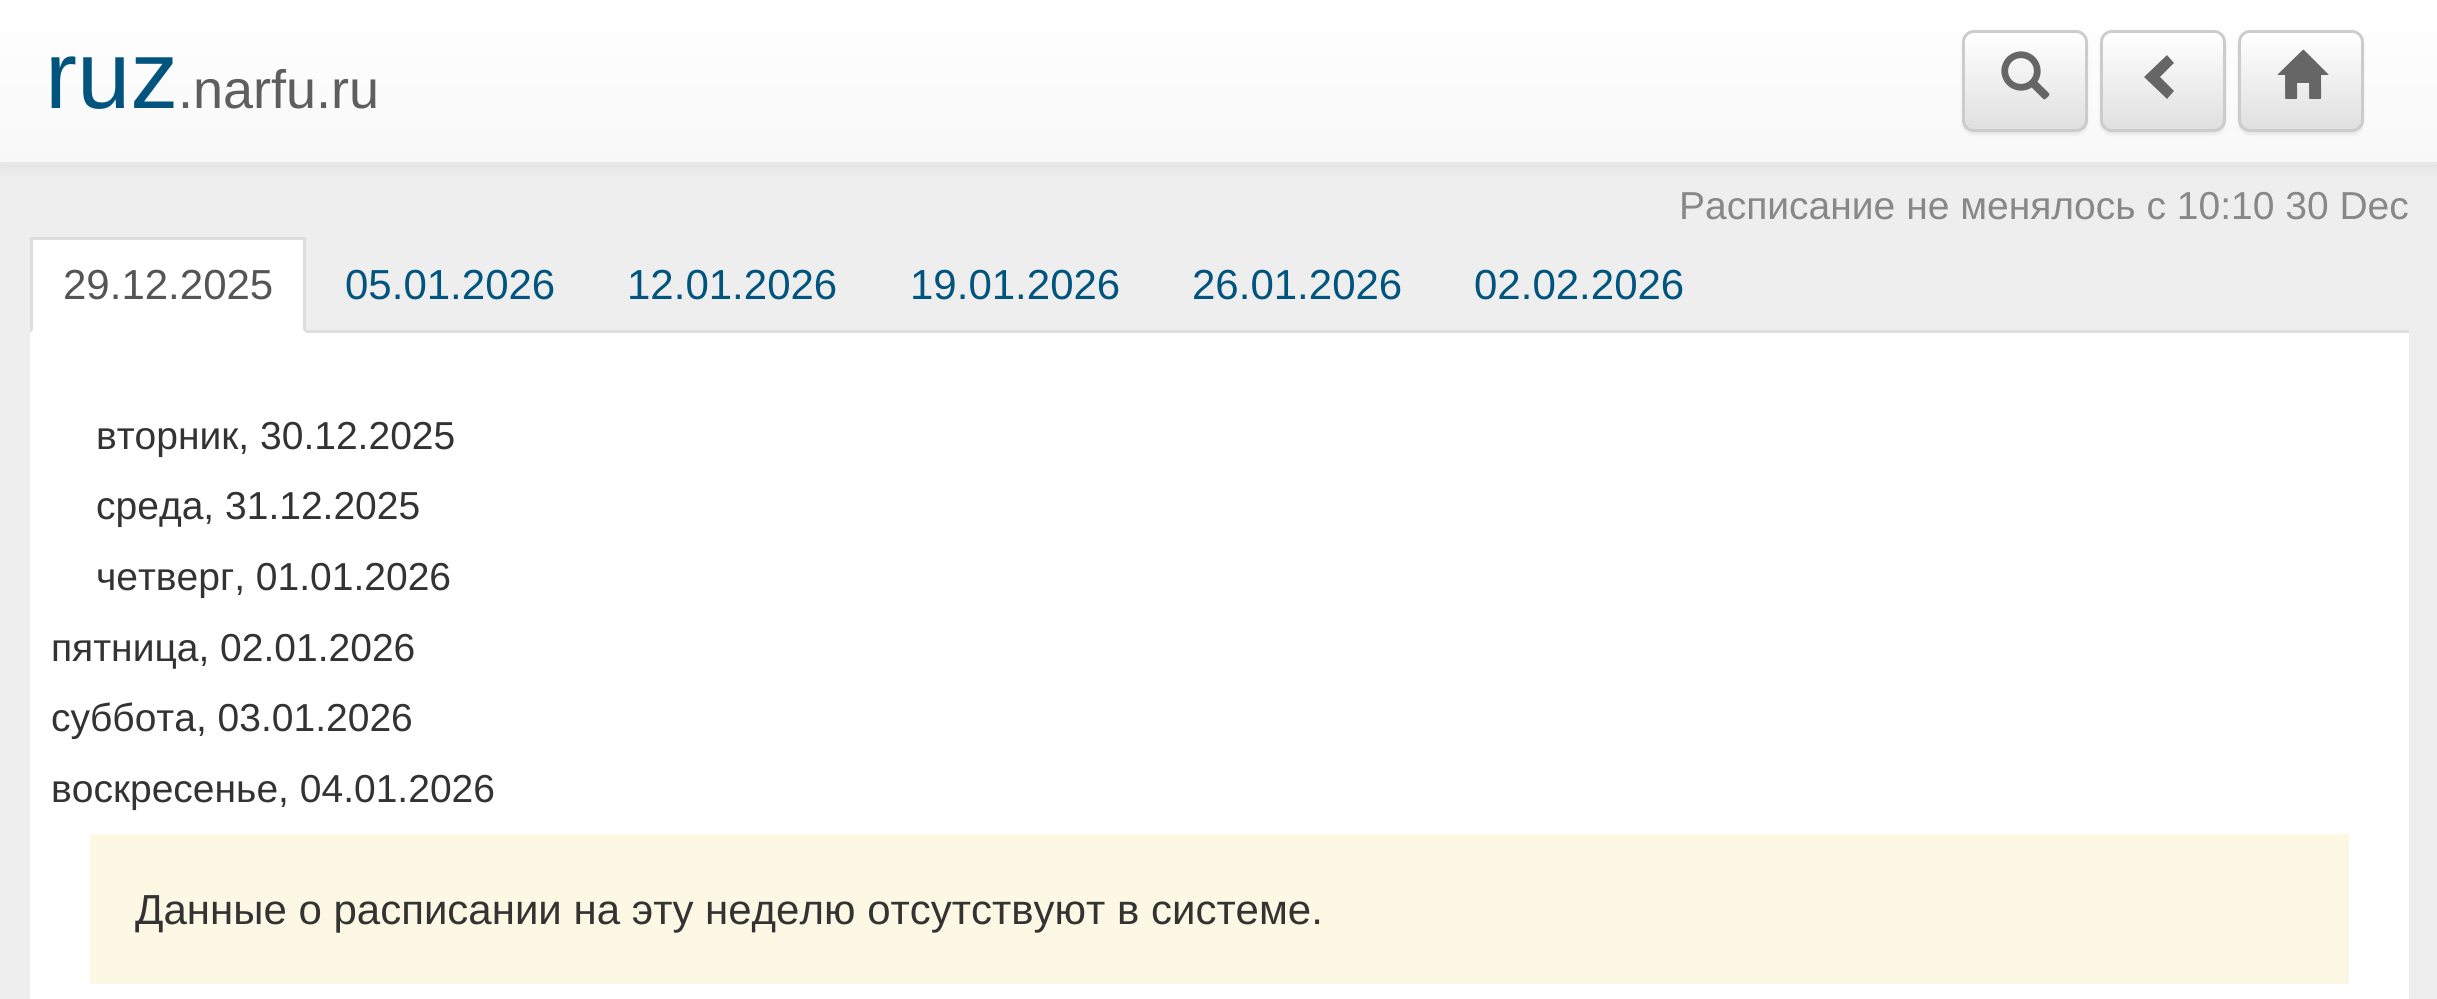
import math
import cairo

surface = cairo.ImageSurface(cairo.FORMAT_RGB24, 2437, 999)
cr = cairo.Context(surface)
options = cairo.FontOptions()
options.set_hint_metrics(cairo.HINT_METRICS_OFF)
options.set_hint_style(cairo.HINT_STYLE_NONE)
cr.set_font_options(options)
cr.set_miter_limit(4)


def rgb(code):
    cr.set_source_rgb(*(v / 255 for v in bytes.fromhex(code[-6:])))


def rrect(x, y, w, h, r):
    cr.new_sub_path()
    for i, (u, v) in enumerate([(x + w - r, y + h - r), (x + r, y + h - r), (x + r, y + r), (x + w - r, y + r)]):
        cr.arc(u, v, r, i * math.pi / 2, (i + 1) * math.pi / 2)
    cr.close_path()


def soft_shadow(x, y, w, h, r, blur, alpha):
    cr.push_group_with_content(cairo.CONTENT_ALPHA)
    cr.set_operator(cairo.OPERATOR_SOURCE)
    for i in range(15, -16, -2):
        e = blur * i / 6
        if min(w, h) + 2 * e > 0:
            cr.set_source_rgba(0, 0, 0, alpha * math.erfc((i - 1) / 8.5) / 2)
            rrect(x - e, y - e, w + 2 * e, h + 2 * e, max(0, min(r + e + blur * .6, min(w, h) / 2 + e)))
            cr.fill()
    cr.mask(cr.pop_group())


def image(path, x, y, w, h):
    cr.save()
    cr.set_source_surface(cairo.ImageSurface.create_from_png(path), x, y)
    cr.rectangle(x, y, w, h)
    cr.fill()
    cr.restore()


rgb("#eeeeee")
cr.paint()
rgb("#000000")
soft_shadow(0, 3, 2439, 165, 0, 7.5, 0.07)
gradient = cairo.LinearGradient(1220, 0, 1220, 162)
gradient.add_color_stop_rgba(0, 1, 1, 1, 1)
gradient.add_color_stop_rgba(1, 0.973, 0.973, 0.973, 1)
cr.set_source(gradient)
cr.rectangle(0, 0, 2437, 162)
cr.fill()
rgb("#e7e7e7")
cr.rectangle(0, 162, 2437, 3)
cr.fill()
rgb("#000000")
soft_shadow(1962, 33, 126, 102, 12, 1.5, 0.07)
cr.save()
rrect(1962, 30, 126, 102, 12)
cr.clip()
gradient = cairo.LinearGradient(2025, 33, 2025, 129)
gradient.add_color_stop_rgba(0, 1, 1, 1, 1)
gradient.add_color_stop_rgba(1, 0.878, 0.878, 0.878, 1)
cr.set_source(gradient)
cr.rectangle(1962, 33, 126, 96)
cr.fill()
cr.restore()
rgb("#ffffff")
cr.new_path()
cr.move_to(1974, 36)
cr.line_to(2076, 36)
cr.curve_to(2081, 36, 2085, 40, 2085, 45)
cr.curve_to(2085, 29, 2072, 33, 2059, 33)
cr.line_to(1991, 33)
cr.curve_to(1978, 33, 1965, 29, 1965, 45)
cr.curve_to(1965, 40, 1969, 36, 1974, 36)
cr.close_path()
cr.fill()
rrect(1963.5, 31.5, 123, 99, 10.5)
rgb("#cccccc")
cr.set_line_width(3)
cr.stroke()
image("img/1.png", 2001, 51, 49, 49)
rgb("#000000")
soft_shadow(2100, 33, 126, 102, 12, 1.5, 0.07)
cr.save()
rrect(2100, 30, 126, 102, 12)
cr.clip()
gradient = cairo.LinearGradient(2163, 33, 2163, 129)
gradient.add_color_stop_rgba(0, 1, 1, 1, 1)
gradient.add_color_stop_rgba(1, 0.878, 0.878, 0.878, 1)
cr.set_source(gradient)
cr.rectangle(2100, 33, 126, 96)
cr.fill()
cr.restore()
rgb("#ffffff")
cr.new_path()
cr.move_to(2112, 36)
cr.line_to(2214, 36)
cr.curve_to(2219, 36, 2223, 40, 2223, 45)
cr.curve_to(2223, 29, 2210, 33, 2197, 33)
cr.line_to(2129, 33)
cr.curve_to(2116, 33, 2103, 29, 2103, 45)
cr.curve_to(2103, 40, 2107, 36, 2112, 36)
cr.close_path()
cr.fill()
rrect(2101.5, 31.5, 123, 99, 10.5)
rgb("#cccccc")
cr.stroke()
rgb("#666666")
cr.new_path()
cr.move_to(2174, 63)
cr.line_to(2160, 77)
cr.line_to(2174, 91)
cr.line_to(2167, 99)
cr.line_to(2144, 77)
cr.line_to(2167, 55)
cr.close_path()
cr.fill()
rgb("#000000")
soft_shadow(2238, 33, 126, 102, 12, 1.5, 0.07)
cr.save()
rrect(2238, 30, 126, 102, 12)
cr.clip()
gradient = cairo.LinearGradient(2301, 33, 2301, 129)
gradient.add_color_stop_rgba(0, 1, 1, 1, 1)
gradient.add_color_stop_rgba(1, 0.878, 0.878, 0.878, 1)
cr.set_source(gradient)
cr.rectangle(2238, 33, 126, 96)
cr.fill()
cr.restore()
rgb("#ffffff")
cr.new_path()
cr.move_to(2250, 36)
cr.line_to(2352, 36)
cr.curve_to(2357, 36, 2361, 40, 2361, 45)
cr.curve_to(2361, 29, 2348, 33, 2335, 33)
cr.line_to(2267, 33)
cr.curve_to(2254, 33, 2241, 29, 2241, 45)
cr.curve_to(2241, 40, 2245, 36, 2250, 36)
cr.close_path()
cr.fill()
rrect(2239.5, 31.5, 123, 99, 10.5)
rgb("#cccccc")
cr.stroke()
image("img/2.png", 2277, 49, 52, 50)
for x, y, w, h, color in [
    (306, 330, 2103, 3, "#dddddd"),
    (30, 240, 276, 93, "#ffffff"),
    (30, 237, 276, 3, "#dddddd"),
]:
    rgb(color)
    cr.rectangle(x, y, w, h)
    cr.fill()
cr.new_path()
cr.move_to(306, 237)
cr.line_to(306, 333)
cr.line_to(303, 330)
cr.line_to(303, 240)
cr.close_path()
cr.fill()
cr.new_path()
cr.move_to(30, 333)
cr.line_to(30, 237)
cr.line_to(33, 240)
cr.line_to(33, 330)
cr.close_path()
cr.fill()
rgb("#ffffff")
cr.rectangle(30, 333, 2379, 666)
cr.fill()
rgb("#fcf8e3")
cr.rectangle(90, 834, 2259, 150)
cr.fill()
cr.select_font_face("Liberation Sans")
cr.set_font_size(96)
rgb("#00547e")
cr.move_to(45, 108)
cr.show_text("ruz")
cr.set_font_size(54)
rgb("#5e5e5e")
cr.move_to(178, 108)
cr.show_text(".narfu.ru")
cr.set_font_size(39)
rgb("#888888")
cr.move_to(1679, 219)
cr.show_text("Расписание не менялось с 10:10 30 Dec")
cr.set_font_size(42)
rgb("#555555")
cr.move_to(63, 299)
cr.show_text("29.12.2025")
rgb("#00547e")
for x, y, s in [
    (345, 299, "05.01.2026"),
    (627, 299, "12.01.2026"),
    (910, 299, "19.01.2026"),
    (1192, 299, "26.01.2026"),
    (1474, 299, "02.02.2026"),
]:
    cr.move_to(x, y)
    cr.show_text(s)
cr.set_font_size(39)
rgb("#333333")
for x, y, s in [
    (96, 449, "вторник, 30.12.2025"),
    (96, 519, "среда, 31.12.2025"),
    (96, 590, "четверг, 01.01.2026"),
    (51, 661, "пятница, 02.01.2026"),
    (51, 731, "суббота, 03.01.2026"),
    (51, 802, "воскресенье, 04.01.2026"),
]:
    cr.move_to(x, y)
    cr.show_text(s)
cr.set_font_size(42)
cr.move_to(135, 924)
cr.show_text("Данные о расписании на эту неделю отсутствуют в системе.")
surface.write_to_png("page.png")
